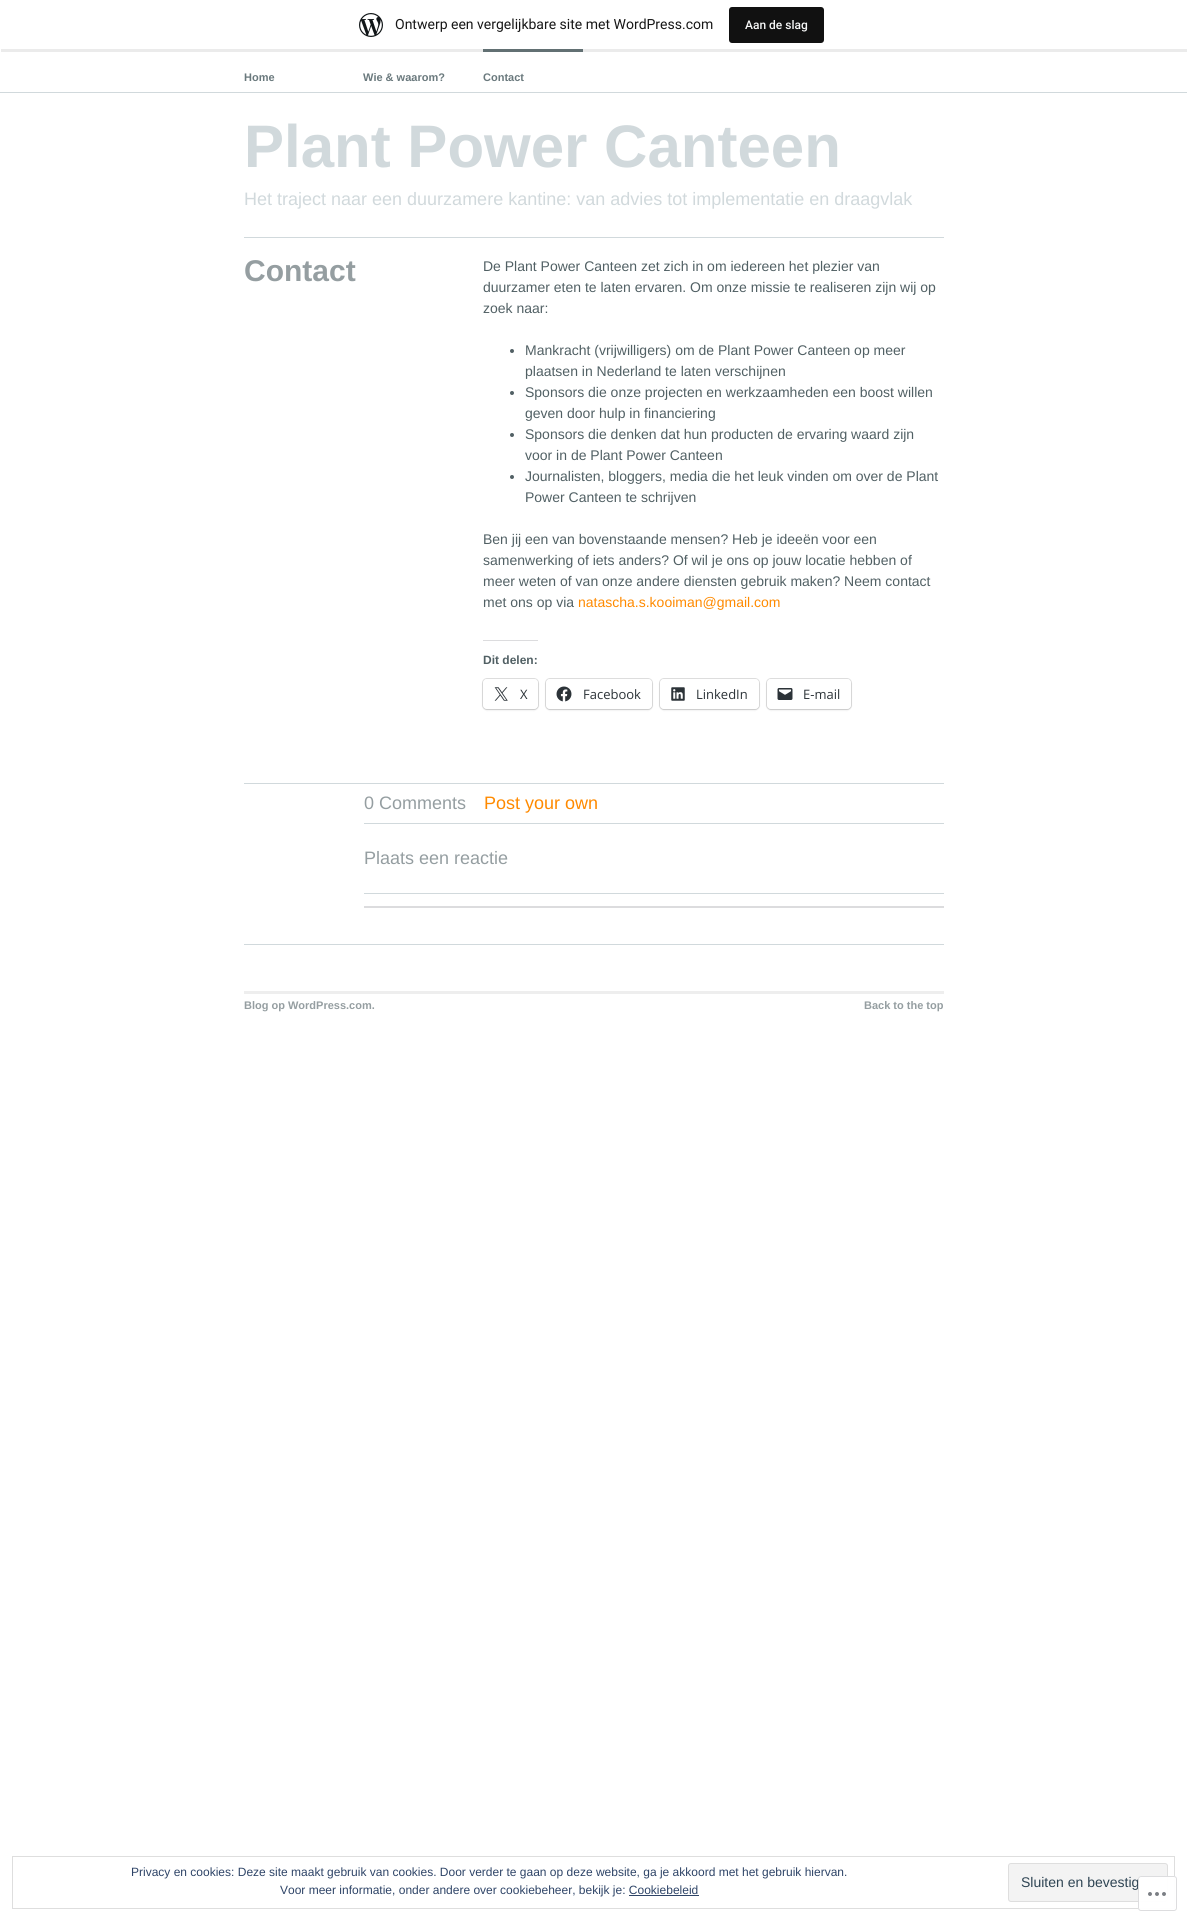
import math
import cairo

surface = cairo.ImageSurface(cairo.FORMAT_RGB24, 1187, 1921)
cr = cairo.Context(surface)
options = cairo.FontOptions()
options.set_hint_metrics(cairo.HINT_METRICS_OFF)
options.set_hint_style(cairo.HINT_STYLE_NONE)
cr.set_font_options(options)
cr.set_miter_limit(4)


def rgb(code):
    cr.set_source_rgb(*(v / 255 for v in bytes.fromhex(code[-6:])))


def rrect(x, y, w, h, r):
    cr.new_sub_path()
    for i, (u, v) in enumerate([(x + w - r, y + h - r), (x + r, y + h - r), (x + r, y + r), (x + w - r, y + r)]):
        cr.arc(u, v, r, i * math.pi / 2, (i + 1) * math.pi / 2)
    cr.close_path()


def soft_shadow(x, y, w, h, r, blur, alpha):
    cr.push_group_with_content(cairo.CONTENT_ALPHA)
    cr.set_operator(cairo.OPERATOR_SOURCE)
    for i in range(15, -16, -2):
        e = blur * i / 6
        if min(w, h) + 2 * e > 0:
            cr.set_source_rgba(0, 0, 0, alpha * math.erfc((i - 1) / 8.5) / 2)
            rrect(x - e, y - e, w + 2 * e, h + 2 * e, max(0, min(r + e + blur * .6, min(w, h) / 2 + e)))
            cr.fill()
    cr.mask(cr.pop_group())


def image(path, x, y, w, h):
    cr.save()
    cr.set_source_surface(cairo.ImageSurface.create_from_png(path), x, y)
    cr.rectangle(x, y, w, h)
    cr.fill()
    cr.restore()


rgb("#ffffff")
cr.paint()
rgb("#6a797d")
cr.rectangle(483, 49, 100, 3)
cr.fill()
cr.set_source_rgba(0, 0, 0, 0.08)
cr.new_path()
cr.move_to(1, 49)
cr.line_to(1, 52)
cr.line_to(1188, 52)
cr.line_to(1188, 3)
cr.line_to(1187, 3)
cr.line_to(1187, 49)
cr.close_path()
cr.fill()
image("img/1.png", 359, 13, 24, 24)
rgb("#111111")
rrect(729, 7, 95, 36, 3)
cr.fill()
rgb("#d1d9dc")
cr.rectangle(0, 92, 1187, 1)
cr.fill()
cr.rectangle(244, 237, 700, 1)
cr.fill()
rgb("#516064")
cr.arc(512, 351, 2, 0, 2 * math.pi)
cr.fill()
cr.arc(512, 393, 2, 0, 2 * math.pi)
cr.fill()
cr.arc(512, 435, 2, 0, 2 * math.pi)
cr.fill()
cr.arc(512, 477, 2, 0, 2 * math.pi)
cr.fill()
rgb("#dcdcde")
cr.rectangle(483, 640, 55, 1)
cr.fill()
rrect(482.5, 678.5, 56, 31, 4.5)
rgb("#e0e0e0")
cr.set_line_width(1)
cr.stroke()
rgb("#000000")
soft_shadow(483, 680, 55, 30, 4, 1, 0.12)
rgb("#ffffff")
rrect(483, 679, 55, 30, 4)
cr.fill()
image("img/2.png", 494, 687, 14, 14)
rrect(545.5, 678.5, 107, 31, 4.5)
rgb("#e0e0e0")
cr.stroke()
rgb("#000000")
soft_shadow(546, 680, 106, 30, 4, 1, 0.12)
rgb("#ffffff")
rrect(546, 679, 106, 30, 4)
cr.fill()
image("img/3.png", 556, 686, 16, 16)
rrect(659.5, 678.5, 100, 31, 4.5)
rgb("#e0e0e0")
cr.stroke()
rgb("#000000")
soft_shadow(660, 680, 99, 30, 4, 1, 0.12)
rgb("#ffffff")
rrect(660, 679, 99, 30, 4)
cr.fill()
image("img/4.png", 671, 687, 14, 14)
rrect(766.5, 678.5, 85, 31, 4.5)
rgb("#e0e0e0")
cr.stroke()
rgb("#000000")
soft_shadow(767, 680, 84, 30, 4, 1, 0.12)
rgb("#ffffff")
rrect(767, 679, 84, 30, 4)
cr.fill()
image("img/5.png", 777, 688, 16, 12)
for x, y, w, h, color in [
    (244, 783, 700, 1, "#d1d9dc"),
    (364, 823, 580, 1, "#d1d9dc"),
    (364, 893, 580, 1, "#d1d9dc"),
    (364, 906, 580, 2, "#dcdcde"),
    (244, 944, 700, 1, "#d1d9dc"),
    (244, 991, 700, 3, "#eeeeee"),
]:
    rgb(color)
    cr.rectangle(x, y, w, h)
    cr.fill()
cr.rectangle(12.5, 1856.5, 1162, 52)
rgb("#dedede")
cr.stroke()
rgb("#f3f3f3")
rrect(1008.5, 1863.5, 159, 38, 2.5)
cr.fill_preserve()
rgb("#dedede")
cr.stroke()
rgb("#2e4467")
cr.rectangle(629, 1895, 70, 1)
cr.fill()
cr.select_font_face("Roboto")
cr.set_font_size(14)
rgb("#171717")
cr.move_to(395, 29)
cr.show_text("Ontwerp een vergelijkbare site met WordPress.com")
cr.select_font_face("Roboto Medium")
cr.set_font_size(12)
rgb("#f6f7f7")
cr.move_to(745, 29)
cr.show_text("Aan de slag")
cr.select_font_face("Liberation Sans", cairo.FONT_SLANT_NORMAL, cairo.FONT_WEIGHT_BOLD)
cr.set_font_size(11)
rgb("#6a797d")
for x, y, s in [
    (244, 81, "Home"),
    (363, 81, "Wie & waarom?"),
    (483, 81, "Contact"),
]:
    cr.move_to(x, y)
    cr.show_text(s)
cr.set_font_size(60)
rgb("#d1d9dc")
cr.move_to(244, 167)
cr.show_text("Plant Power Canteen")
cr.select_font_face("Liberation Sans")
cr.set_font_size(18)
cr.move_to(244, 205)
cr.show_text("Het traject naar een duurzamere kantine: van advies tot implementatie en draagvlak")
cr.select_font_face("Liberation Sans", cairo.FONT_SLANT_NORMAL, cairo.FONT_WEIGHT_BOLD)
cr.set_font_size(30)
rgb("#959ea1")
cr.move_to(244, 281)
cr.show_text("Contact")
cr.select_font_face("Liberation Sans")
cr.set_font_size(14)
rgb("#516064")
for x, y, s in [
    (483, 271, "De Plant Power Canteen zet zich in om iedereen het plezier van"),
    (483, 292, "duurzamer eten te laten ervaren. Om onze missie te realiseren zijn wij op"),
    (483, 313, "zoek naar:"),
    (525, 355, "Mankracht (vrijwilligers) om de Plant Power Canteen op meer"),
    (525, 376, "plaatsen in Nederland te laten verschijnen"),
    (525, 397, "Sponsors die onze projecten en werkzaamheden een boost willen"),
    (525, 418, "geven door hulp in financiering"),
    (525, 439, "Sponsors die denken dat hun producten de ervaring waard zijn"),
    (525, 460, "voor in de Plant Power Canteen"),
    (525, 481, "Journalisten, bloggers, media die het leuk vinden om over de Plant"),
    (525, 502, "Power Canteen te schrijven"),
    (483, 544, "Ben jij een van bovenstaande mensen? Heb je ideeën voor een"),
    (483, 565, "samenwerking of iets anders? Of wil je ons op jouw locatie hebben of"),
    (483, 586, "meer weten of van onze andere diensten gebruik maken? Neem contact"),
    (483, 607, "met ons op via"),
]:
    cr.move_to(x, y)
    cr.show_text(s)
rgb("#ff8a00")
cr.move_to(578, 607)
cr.show_text("natascha.s.kooiman@gmail.com")
cr.select_font_face("Liberation Sans", cairo.FONT_SLANT_NORMAL, cairo.FONT_WEIGHT_BOLD)
cr.set_font_size(12)
rgb("#516064")
cr.move_to(483, 664)
cr.show_text("Dit delen:")
cr.select_font_face("Open Sans")
cr.set_font_size(13)
rgb("#2c3338")
for x, y, s in [
    (520, 699, "X"),
    (583, 699, "Facebook"),
    (696, 699, "LinkedIn"),
    (803, 699, "E-mail"),
]:
    cr.move_to(x, y)
    cr.show_text(s)
cr.select_font_face("Liberation Sans")
cr.set_font_size(18)
rgb("#959ea1")
cr.move_to(364, 809)
cr.show_text("0 Comments")
rgb("#ff8a00")
cr.move_to(484, 809)
cr.show_text("Post your own")
rgb("#959ea1")
cr.move_to(364, 864)
cr.show_text("Plaats een reactie")
cr.select_font_face("Liberation Sans", cairo.FONT_SLANT_NORMAL, cairo.FONT_WEIGHT_BOLD)
cr.set_font_size(11)
cr.move_to(244, 1009)
cr.show_text("Blog op WordPress.com.")
cr.move_to(864, 1009)
cr.show_text("Back to the top")
cr.select_font_face("Liberation Sans")
cr.set_font_size(12)
rgb("#2e4467")
cr.move_to(131, 1876)
cr.show_text("Privacy en cookies: Deze site maakt gebruik van cookies. Door verder te gaan op deze website, ga je akkoord met het gebruik hiervan.")
cr.move_to(280, 1894)
cr.show_text("Voor meer informatie, onder andere over cookiebeheer, bekijk je: Cookiebeleid")
cr.set_font_size(14)
rgb("#2e4453")
cr.move_to(1021, 1887)
cr.show_text("Sluiten en bevestig")
cr.set_source_rgba(1, 1, 1, 0.98)
rrect(1138, 1876, 39, 35, 3)
cr.fill()
rrect(1138.5, 1876.5, 38, 34, 2.5)
cr.set_source_rgba(0.863, 0.863, 0.871, 0.98)
cr.stroke()
image("img/6.png", 1148, 1892, 18, 4)
surface.write_to_png("page.png")
